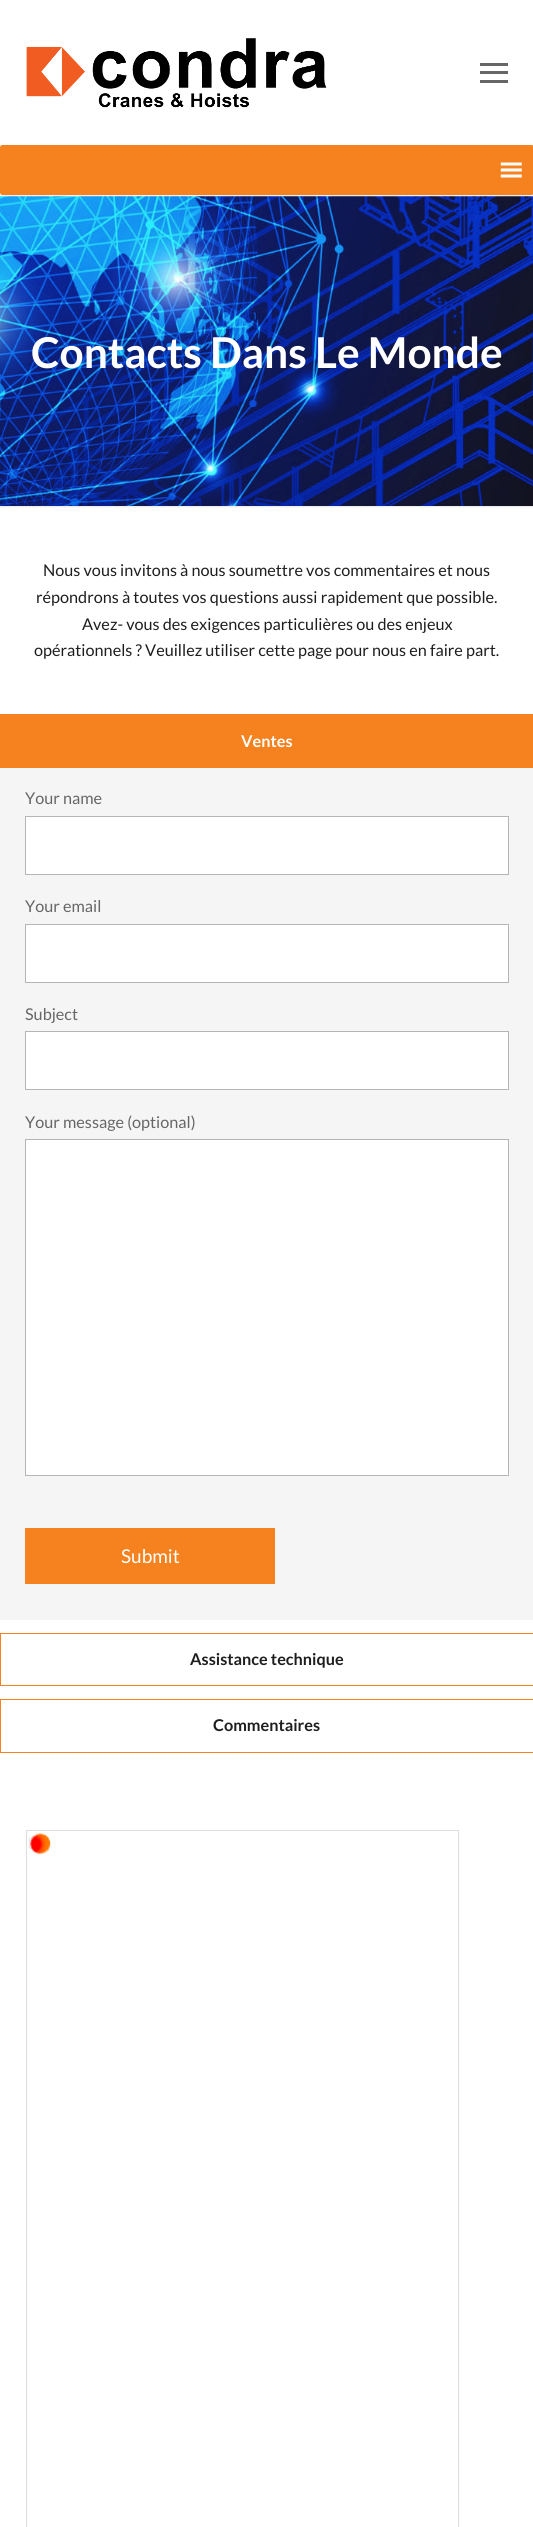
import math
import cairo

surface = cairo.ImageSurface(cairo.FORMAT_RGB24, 533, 2527)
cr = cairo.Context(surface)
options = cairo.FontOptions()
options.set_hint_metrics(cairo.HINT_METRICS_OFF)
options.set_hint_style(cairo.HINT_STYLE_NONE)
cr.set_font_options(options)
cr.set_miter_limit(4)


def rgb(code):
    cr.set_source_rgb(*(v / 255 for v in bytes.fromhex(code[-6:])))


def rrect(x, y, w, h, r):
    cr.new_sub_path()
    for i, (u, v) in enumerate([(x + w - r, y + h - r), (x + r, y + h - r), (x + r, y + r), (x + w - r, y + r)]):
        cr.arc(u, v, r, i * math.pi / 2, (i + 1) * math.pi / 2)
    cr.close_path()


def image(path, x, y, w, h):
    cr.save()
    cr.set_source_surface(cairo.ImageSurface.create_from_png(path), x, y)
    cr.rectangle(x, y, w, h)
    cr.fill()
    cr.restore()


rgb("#ffffff")
cr.paint()
image("img/1.png", 26, 38, 301, 70)
for x, y, w, h, color in [
    (480, 71, 28, 3, "#666666"),
    (480, 63, 28, 3, "#666666"),
    (480, 80, 28, 3, "#666666"),
]:
    rgb(color)
    cr.rectangle(x, y, w, h)
    cr.fill()
rgb("#f5821f")
rrect(0, 145, 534, 50, 2.5)
cr.fill()
image("img/2.png", 500, 162, 22, 16)
rgb("#f7f7f7")
cr.rectangle(0, 196, 533, 312)
cr.fill()
image("img/3.png", 0, 196, 533, 310)
for x, y, w, h, color in [
    (0, 195, 533, 1, "#eeeeee"),
    (0, 506, 533, 1, "#eeeeee"),
    (0, 714, 533, 54, "#f5821f"),
    (0, 768, 533, 852, "#f5f5f5"),
]:
    rgb(color)
    cr.rectangle(x, y, w, h)
    cr.fill()
rgb("#ffffff")
cr.rectangle(25.5, 816.5, 483, 58)
cr.fill_preserve()
rgb("#b5b5b5")
cr.set_line_width(1)
cr.stroke()
rgb("#ffffff")
cr.rectangle(25.5, 924.5, 483, 58)
cr.fill_preserve()
rgb("#b5b5b5")
cr.stroke()
rgb("#ffffff")
cr.rectangle(25.5, 1031.5, 483, 58)
cr.fill_preserve()
rgb("#b5b5b5")
cr.stroke()
rgb("#ffffff")
cr.rectangle(25.5, 1139.5, 483, 336)
cr.fill_preserve()
rgb("#b5b5b5")
cr.stroke()
rgb("#f5821f")
cr.rectangle(25, 1528, 250, 56)
cr.fill()
cr.rectangle(0.5, 1633.5, 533, 52)
cr.stroke()
cr.rectangle(0.5, 1699.5, 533, 53)
cr.stroke()
cr.rectangle(26.5, 1830.5, 432, 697)
rgb("#dddddd")
cr.stroke()
image("img/4.png", 28, 1832, 24, 22)
image("img/5.png", 28, 1833, 21, 20)
image("img/6.png", 29, 1838, 1, 10)
rgb("#e9e9e9")
cr.rectangle(29, 1848, 1, 1)
cr.fill()
cr.select_font_face("Lato", cairo.FONT_SLANT_NORMAL, cairo.FONT_WEIGHT_BOLD)
cr.set_font_size(42.5)
rgb("#ffffff")
cr.move_to(31, 368)
cr.show_text("Contacts Dans Le Monde")
cr.select_font_face("Lato")
cr.set_font_size(16.25)
rgb("#1e1e1e")
for x, y, s in [
    (43, 576, "Nous vous invitons à nous soumettre vos commentaires et nous"),
    (36, 603, "répondrons à toutes vos questions aussi rapidement que possible."),
    (82, 630, "Avez- vous des exigences particulières ou des enjeux"),
    (34, 656, "opérationnels ? Veuillez utiliser cette page pour nous en faire part."),
]:
    cr.move_to(x, y)
    cr.show_text(s)
cr.select_font_face("Lato", cairo.FONT_SLANT_NORMAL, cairo.FONT_WEIGHT_BOLD)
rgb("#ffffff")
cr.move_to(241, 747)
cr.show_text("Ventes")
cr.select_font_face("Lato")
rgb("#666666")
for x, y, s in [
    (25, 804, "Your name"),
    (25, 912, "Your email"),
    (25, 1020, "Subject"),
    (25, 1128, "Your message (optional)"),
]:
    cr.move_to(x, y)
    cr.show_text(s)
cr.set_font_size(19)
rgb("#ffffff")
cr.move_to(121, 1563)
cr.show_text("Submit")
cr.select_font_face("Lato", cairo.FONT_SLANT_NORMAL, cairo.FONT_WEIGHT_BOLD)
cr.set_font_size(16.25)
rgb("#1e1e1e")
cr.move_to(190, 1665)
cr.show_text("Assistance technique")
cr.move_to(213, 1731)
cr.show_text("Commentaires")
surface.write_to_png("page.png")
